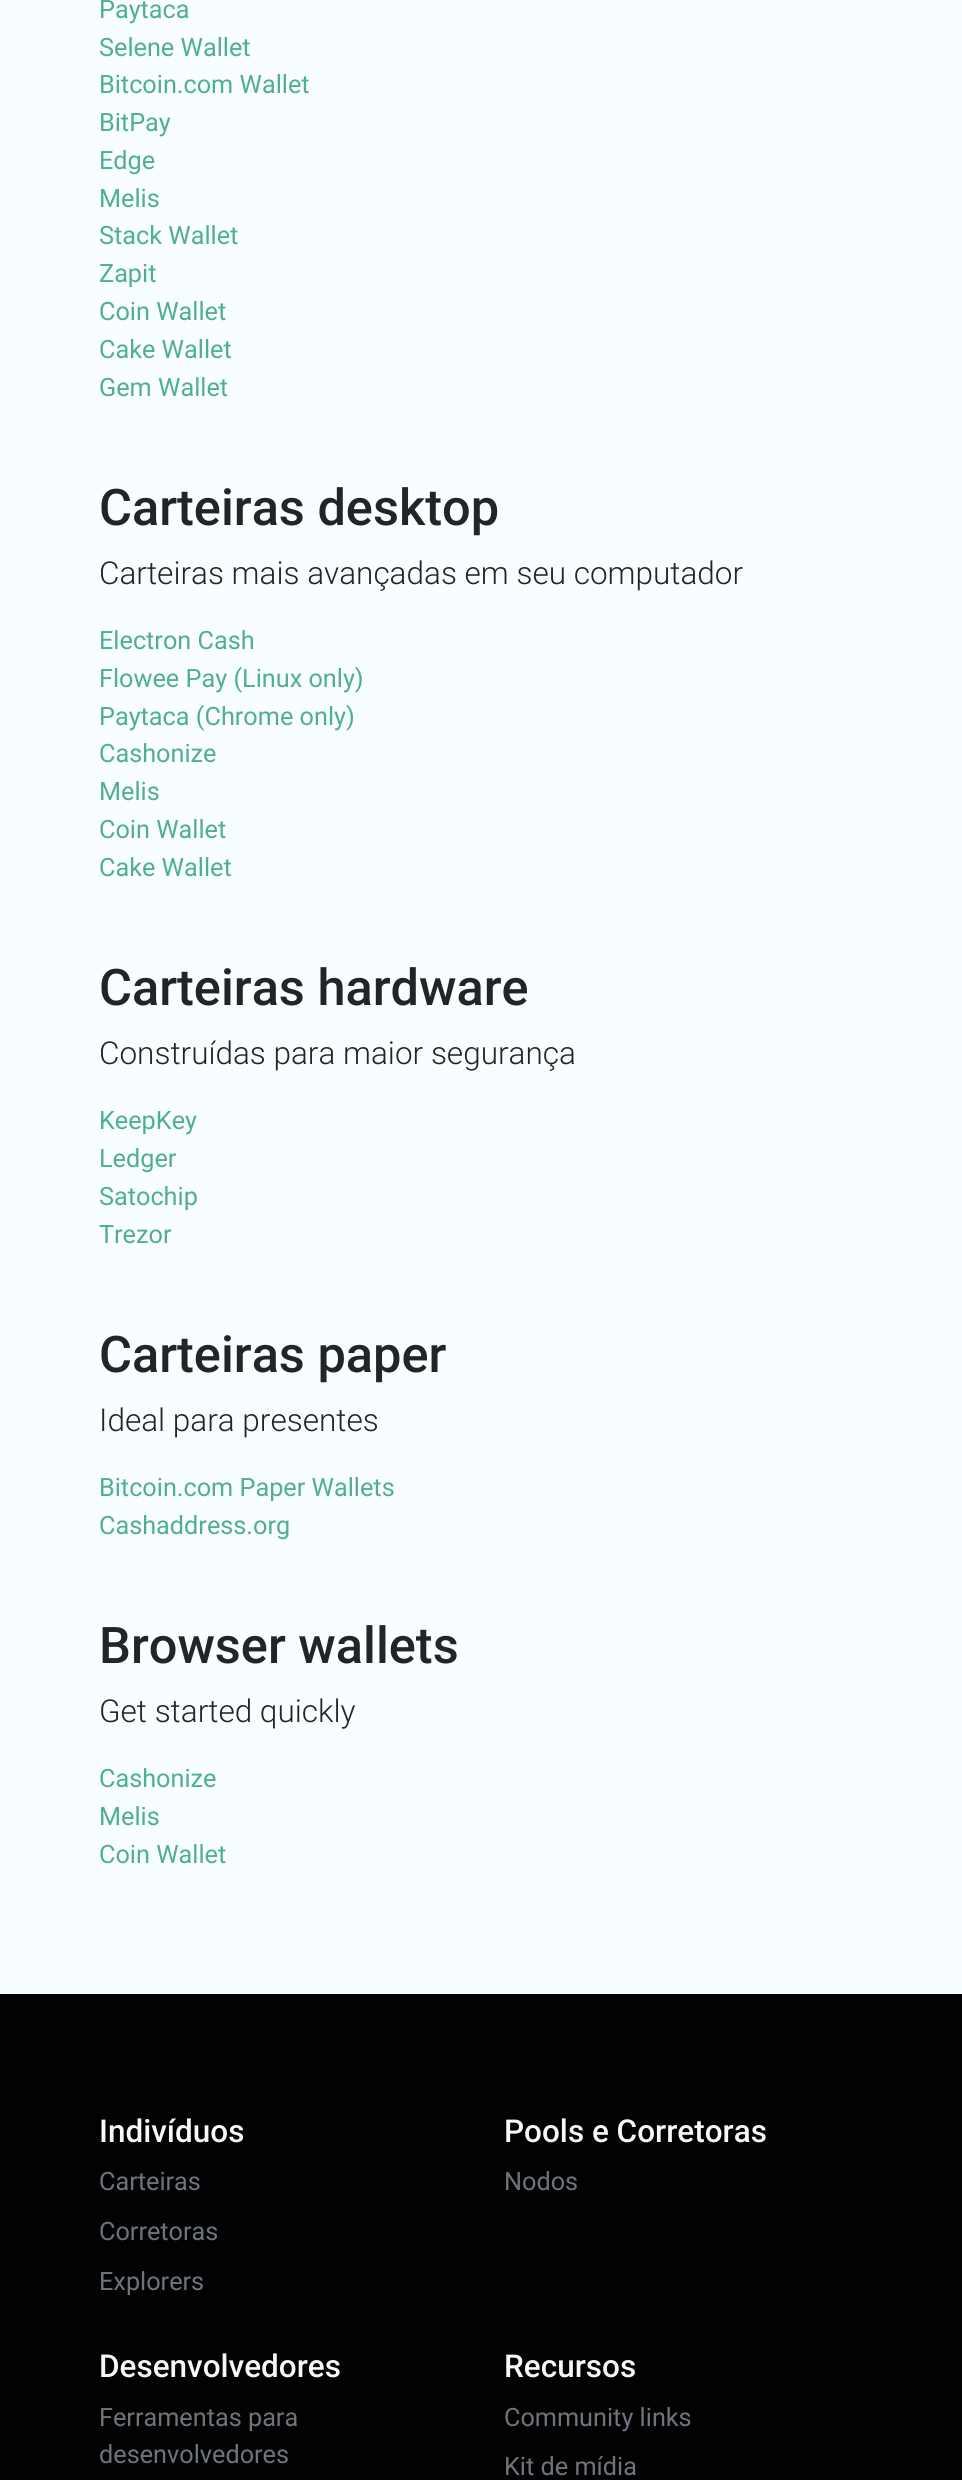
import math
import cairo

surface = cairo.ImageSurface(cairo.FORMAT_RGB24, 962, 2480)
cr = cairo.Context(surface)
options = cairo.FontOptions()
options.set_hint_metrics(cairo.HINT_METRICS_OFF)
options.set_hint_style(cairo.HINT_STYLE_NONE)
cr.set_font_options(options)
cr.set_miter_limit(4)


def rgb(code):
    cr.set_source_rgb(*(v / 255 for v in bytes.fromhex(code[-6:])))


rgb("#020203")
cr.paint()
rgb("#f8fdff")
cr.rectangle(0, 0, 962, 1994)
cr.fill()
cr.select_font_face("Roboto")
cr.set_font_size(25.25)
rgb("#50ae95")
for x, y, s in [
    (99, 18, "Paytaca"),
    (99, 56, "Selene Wallet"),
    (99, 93, "Bitcoin.com Wallet"),
    (99, 131, "BitPay"),
    (99, 169, "Edge"),
    (99, 207, "Melis"),
    (99, 244, "Stack Wallet"),
    (99, 282, "Zapit"),
    (99, 320, "Coin Wallet"),
    (99, 358, "Cake Wallet"),
    (99, 396, "Gem Wallet"),
]:
    cr.move_to(x, y)
    cr.show_text(s)
cr.select_font_face("Roboto Medium")
cr.set_font_size(50.5)
rgb("#212529")
cr.move_to(99, 525)
cr.show_text("Carteiras desktop")
cr.select_font_face("Roboto Light")
cr.set_font_size(31.5)
cr.move_to(99, 584)
cr.show_text("Carteiras mais avançadas em seu computador")
cr.select_font_face("Roboto")
cr.set_font_size(25.25)
rgb("#50ae95")
for x, y, s in [
    (99, 649, "Electron Cash"),
    (99, 687, "Flowee Pay (Linux only)"),
    (99, 725, "Paytaca (Chrome only)"),
    (99, 762, "Cashonize"),
    (99, 800, "Melis"),
    (99, 838, "Coin Wallet"),
    (99, 876, "Cake Wallet"),
]:
    cr.move_to(x, y)
    cr.show_text(s)
cr.select_font_face("Roboto Medium")
cr.set_font_size(50.5)
rgb("#212529")
cr.move_to(99, 1005)
cr.show_text("Carteiras hardware")
cr.select_font_face("Roboto Light")
cr.set_font_size(31.5)
cr.move_to(99, 1064)
cr.show_text("Construídas para maior segurança")
cr.select_font_face("Roboto")
cr.set_font_size(25.25)
rgb("#50ae95")
for x, y, s in [
    (99, 1129, "KeepKey"),
    (99, 1167, "Ledger"),
    (99, 1205, "Satochip"),
    (99, 1243, "Trezor"),
]:
    cr.move_to(x, y)
    cr.show_text(s)
cr.select_font_face("Roboto Medium")
cr.set_font_size(50.5)
rgb("#212529")
cr.move_to(99, 1372)
cr.show_text("Carteiras paper")
cr.select_font_face("Roboto Light")
cr.set_font_size(31.5)
cr.move_to(99, 1431)
cr.show_text("Ideal para presentes")
cr.select_font_face("Roboto")
cr.set_font_size(25.25)
rgb("#50ae95")
cr.move_to(99, 1496)
cr.show_text("Bitcoin.com Paper Wallets")
cr.move_to(99, 1534)
cr.show_text("Cashaddress.org")
cr.select_font_face("Roboto Medium")
cr.set_font_size(50.5)
rgb("#212529")
cr.move_to(99, 1663)
cr.show_text("Browser wallets")
cr.select_font_face("Roboto Light")
cr.set_font_size(31.5)
cr.move_to(99, 1722)
cr.show_text("Get started quickly")
cr.select_font_face("Roboto")
cr.set_font_size(25.25)
rgb("#50ae95")
for x, y, s in [
    (99, 1787, "Cashonize"),
    (99, 1825, "Melis"),
    (99, 1863, "Coin Wallet"),
]:
    cr.move_to(x, y)
    cr.show_text(s)
cr.select_font_face("Roboto Medium")
cr.set_font_size(31.5)
rgb("#f6f9fc")
cr.move_to(99, 2142)
cr.show_text("Indivíduos")
cr.select_font_face("Roboto")
cr.set_font_size(25.25)
rgb("#6c757d")
for x, y, s in [
    (99, 2190, "Carteiras"),
    (99, 2240, "Corretoras"),
    (99, 2290, "Explorers"),
]:
    cr.move_to(x, y)
    cr.show_text(s)
cr.select_font_face("Roboto Medium")
cr.set_font_size(31.5)
rgb("#f6f9fc")
cr.move_to(504, 2142)
cr.show_text("Pools e Corretoras")
cr.select_font_face("Roboto")
cr.set_font_size(25.25)
rgb("#6c757d")
cr.move_to(504, 2190)
cr.show_text("Nodos")
cr.select_font_face("Roboto Medium")
cr.set_font_size(31.5)
rgb("#f6f9fc")
cr.move_to(99, 2377)
cr.show_text("Desenvolvedores")
cr.select_font_face("Roboto")
cr.set_font_size(25.25)
rgb("#6c757d")
cr.move_to(99, 2426)
cr.show_text("Ferramentas para")
cr.move_to(99, 2463)
cr.show_text("desenvolvedores")
cr.select_font_face("Roboto Medium")
cr.set_font_size(31.5)
rgb("#f6f9fc")
cr.move_to(504, 2377)
cr.show_text("Recursos")
cr.select_font_face("Roboto")
cr.set_font_size(25.25)
rgb("#6c757d")
cr.move_to(504, 2426)
cr.show_text("Community links")
cr.move_to(504, 2475)
cr.show_text("Kit de mídia")
surface.write_to_png("page.png")
